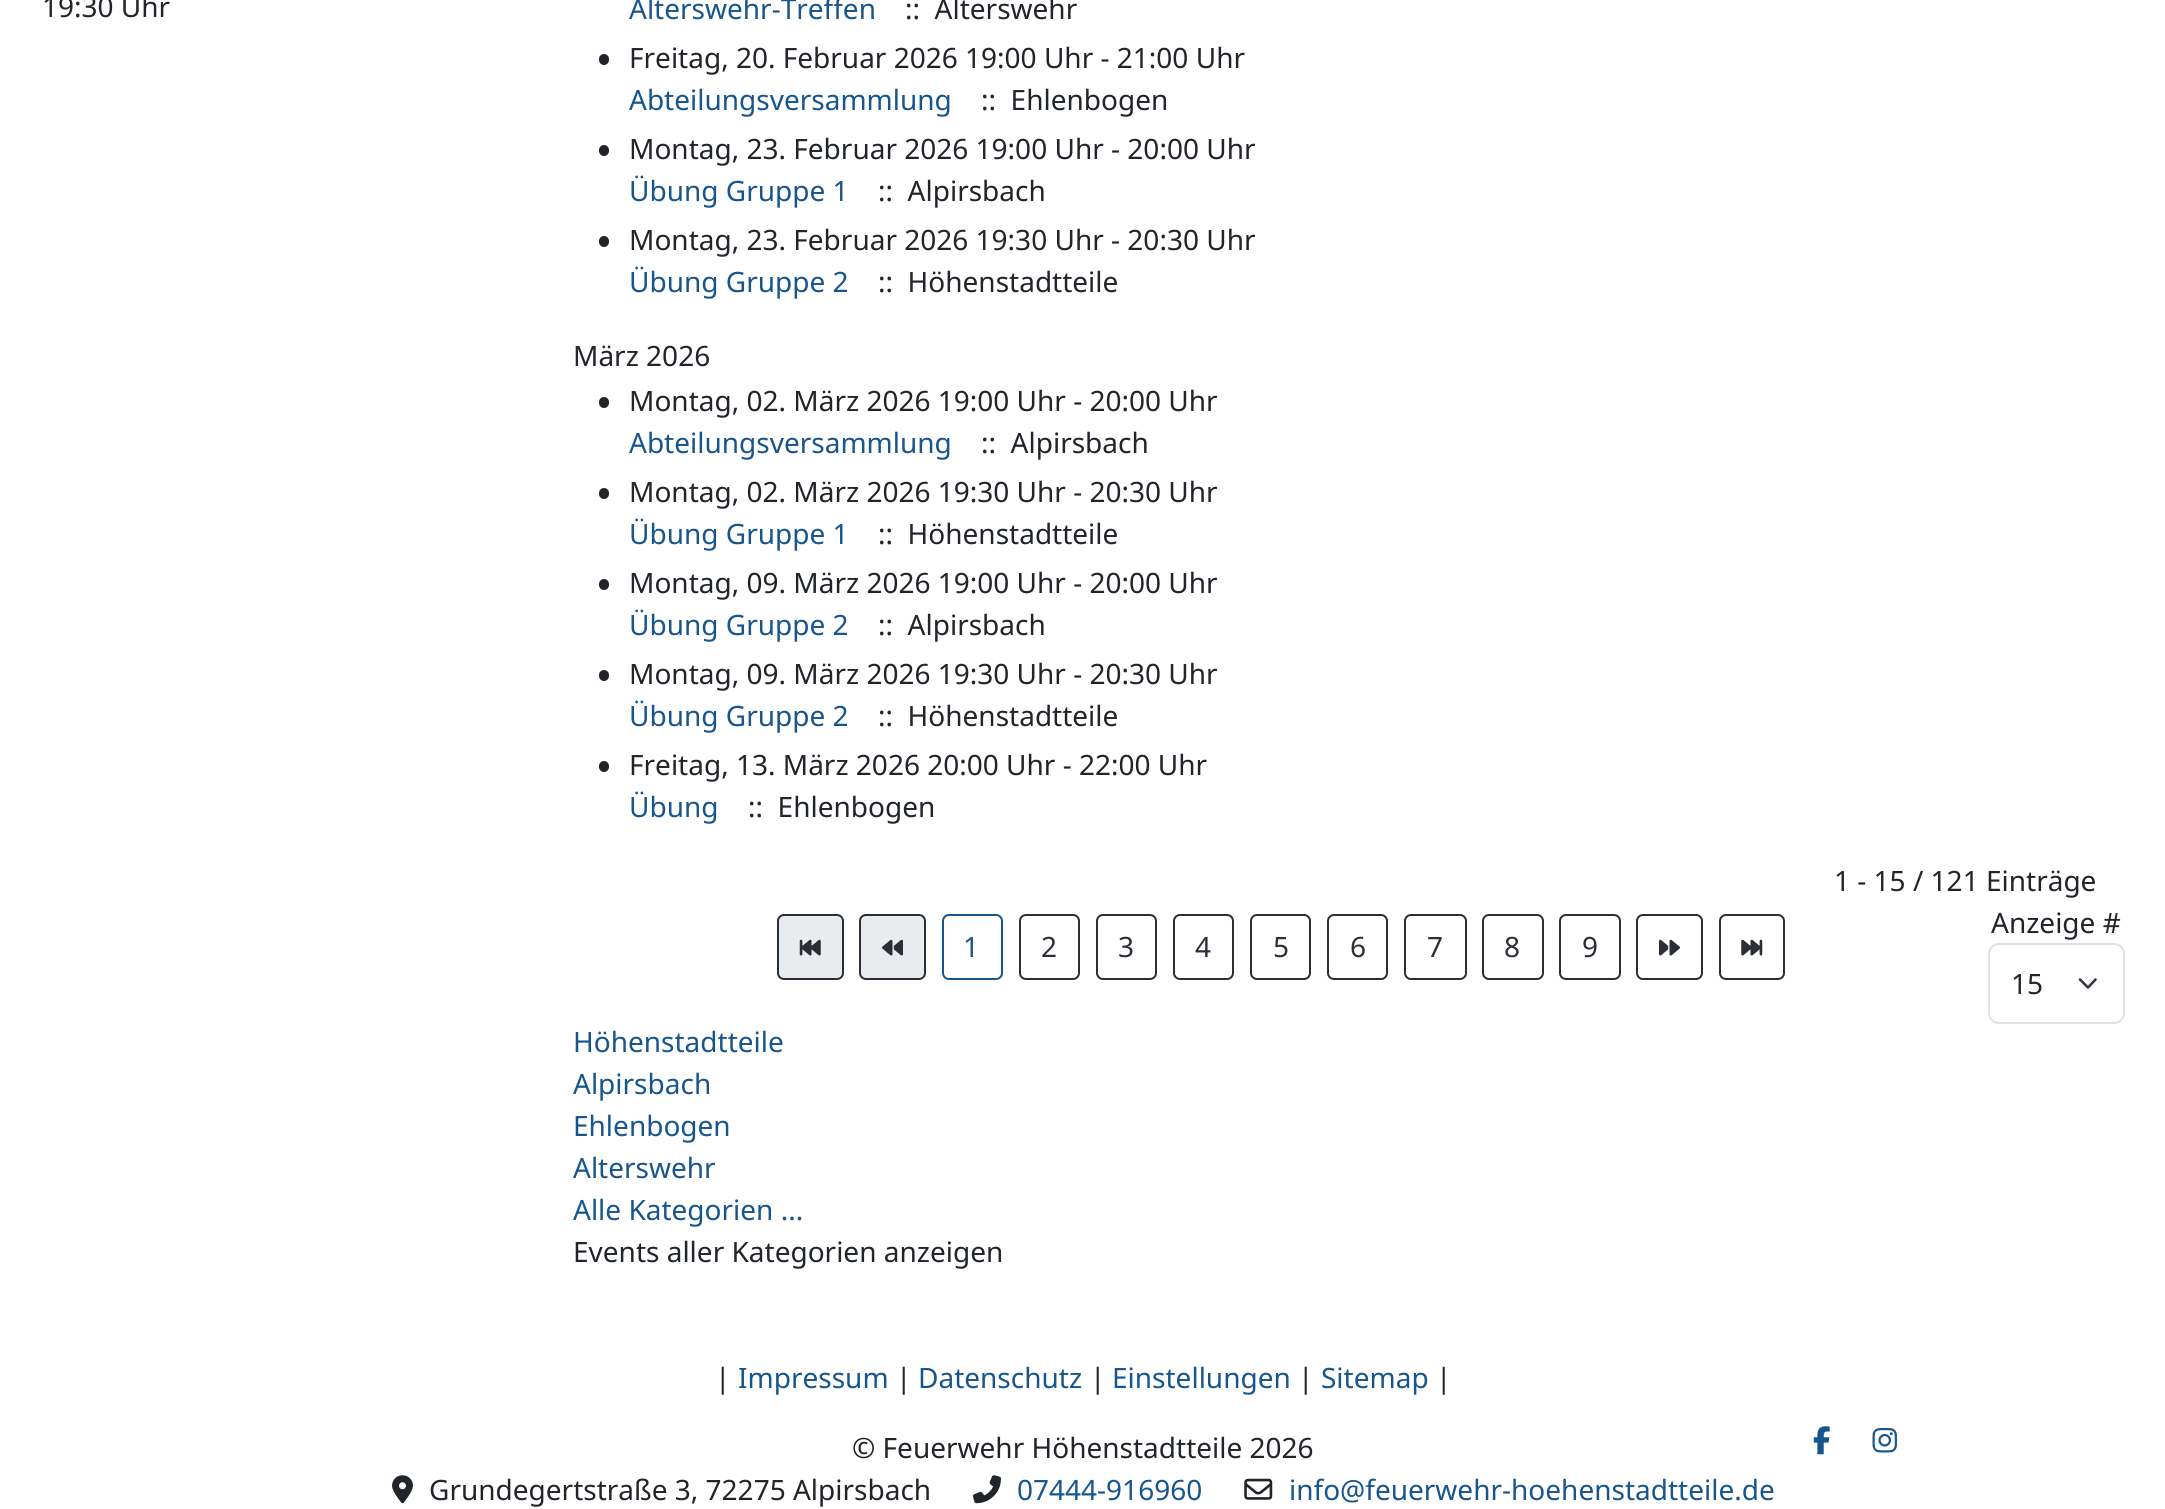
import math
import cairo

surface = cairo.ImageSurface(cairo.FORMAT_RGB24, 2165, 1509)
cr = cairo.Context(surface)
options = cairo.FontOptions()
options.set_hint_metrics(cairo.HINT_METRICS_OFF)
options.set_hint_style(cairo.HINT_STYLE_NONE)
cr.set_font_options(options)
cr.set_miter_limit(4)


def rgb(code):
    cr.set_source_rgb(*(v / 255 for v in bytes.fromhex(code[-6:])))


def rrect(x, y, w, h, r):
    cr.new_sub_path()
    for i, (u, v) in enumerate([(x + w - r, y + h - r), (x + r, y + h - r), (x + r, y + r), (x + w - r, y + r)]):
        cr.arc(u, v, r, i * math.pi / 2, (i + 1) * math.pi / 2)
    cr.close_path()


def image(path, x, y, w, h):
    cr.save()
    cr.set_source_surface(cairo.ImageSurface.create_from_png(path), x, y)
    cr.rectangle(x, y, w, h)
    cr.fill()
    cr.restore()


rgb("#ffffff")
cr.paint()
rgb("#212529")
rrect(599, 54, 10, 11, 5)
cr.fill()
rrect(599, 145, 10, 11, 5)
cr.fill()
rrect(599, 236, 10, 11, 5)
cr.fill()
rrect(599, 397, 10, 11, 5)
cr.fill()
rrect(599, 488, 10, 11, 5)
cr.fill()
rrect(599, 579, 10, 11, 5)
cr.fill()
rrect(599, 670, 10, 11, 5)
cr.fill()
rrect(599, 761, 10, 11, 5)
cr.fill()
rgb("#e9ecef")
rrect(778, 915, 65, 64, 6)
cr.fill_preserve()
rgb("#2c2e36")
cr.stroke()
image("img/1.png", 799, 939, 22, 17)
rgb("#e9ecef")
rrect(860, 915, 65, 64, 6)
cr.fill_preserve()
rgb("#2c2e36")
cr.stroke()
image("img/2.png", 882, 939, 21, 17)
rrect(943, 915, 59, 64, 6)
rgb("#17568c")
cr.stroke()
rrect(1020, 915, 59, 64, 6)
rgb("#2c2e36")
cr.stroke()
rrect(1097, 915, 59, 64, 6)
cr.stroke()
rrect(1174, 915, 59, 64, 6)
cr.stroke()
rrect(1251, 915, 59, 64, 6)
cr.stroke()
rrect(1328, 915, 59, 64, 6)
cr.stroke()
rrect(1405, 915, 61, 64, 6)
cr.stroke()
rrect(1483, 915, 60, 64, 6)
cr.stroke()
rrect(1560, 915, 60, 64, 6)
cr.stroke()
rrect(1637, 915, 65, 64, 6)
cr.stroke()
image("img/3.png", 1659, 939, 21, 17)
rrect(1720, 915, 64, 64, 6)
cr.stroke()
image("img/4.png", 1741, 939, 22, 17)
cr.new_path()
cr.move_to(2080, 979.5)
cr.line_to(2088, 987.5)
cr.line_to(2095.5, 979.5)
rgb("#343a40")
cr.set_line_width(2.6)
cr.set_line_cap(cairo.LINE_CAP_ROUND)
cr.set_line_join(cairo.LINE_JOIN_ROUND)
cr.stroke()
rrect(1989, 944, 135, 79, 10)
rgb("#dee2e6")
cr.set_line_width(2)
cr.set_line_cap(cairo.LINE_CAP_BUTT)
cr.set_line_join(cairo.LINE_JOIN_MITER)
cr.stroke()
image("img/5.png", 1813, 1426, 17, 29)
image("img/6.png", 1872, 1428, 25, 25)
image("img/7.png", 392, 1475, 21, 29)
image("img/8.png", 973, 1475, 28, 29)
image("img/9.png", 1244, 1478, 29, 22)
cr.select_font_face("Noto Sans")
cr.set_font_size(28)
rgb("#212529")
cr.move_to(42, 17)
cr.show_text("19:30 Uhr")
rgb("#17568c")
cr.move_to(629, 19)
cr.show_text("Alterswehr-Treffen")
rgb("#212529")
cr.move_to(905, 19)
cr.show_text("::  Alterswehr")
cr.move_to(629, 68)
cr.show_text("Freitag, 20. Februar 2026 19:00 Uhr - 21:00 Uhr")
rgb("#17568c")
cr.move_to(629, 110)
cr.show_text("Abteilungsversammlung")
rgb("#212529")
cr.move_to(981, 110)
cr.show_text("::  Ehlenbogen")
cr.move_to(629, 159)
cr.show_text("Montag, 23. Februar 2026 19:00 Uhr - 20:00 Uhr")
rgb("#17568c")
cr.move_to(629, 201)
cr.show_text("Übung Gruppe 1")
rgb("#212529")
cr.move_to(878, 201)
cr.show_text("::  Alpirsbach")
cr.move_to(629, 250)
cr.show_text("Montag, 23. Februar 2026 19:30 Uhr - 20:30 Uhr")
rgb("#17568c")
cr.move_to(629, 292)
cr.show_text("Übung Gruppe 2")
rgb("#212529")
for x, y, s in [
    (878, 292, "::  Höhenstadtteile"),
    (573, 366, "März 2026"),
    (629, 411, "Montag, 02. März 2026 19:00 Uhr - 20:00 Uhr"),
]:
    cr.move_to(x, y)
    cr.show_text(s)
rgb("#17568c")
cr.move_to(629, 453)
cr.show_text("Abteilungsversammlung")
rgb("#212529")
cr.move_to(981, 453)
cr.show_text("::  Alpirsbach")
cr.move_to(629, 502)
cr.show_text("Montag, 02. März 2026 19:30 Uhr - 20:30 Uhr")
rgb("#17568c")
cr.move_to(629, 544)
cr.show_text("Übung Gruppe 1")
rgb("#212529")
cr.move_to(878, 544)
cr.show_text("::  Höhenstadtteile")
cr.move_to(629, 593)
cr.show_text("Montag, 09. März 2026 19:00 Uhr - 20:00 Uhr")
rgb("#17568c")
cr.move_to(629, 635)
cr.show_text("Übung Gruppe 2")
rgb("#212529")
cr.move_to(878, 635)
cr.show_text("::  Alpirsbach")
cr.move_to(629, 684)
cr.show_text("Montag, 09. März 2026 19:30 Uhr - 20:30 Uhr")
rgb("#17568c")
cr.move_to(629, 726)
cr.show_text("Übung Gruppe 2")
rgb("#212529")
cr.move_to(878, 726)
cr.show_text("::  Höhenstadtteile")
cr.move_to(629, 775)
cr.show_text("Freitag, 13. März 2026 20:00 Uhr - 22:00 Uhr")
rgb("#17568c")
cr.move_to(629, 817)
cr.show_text("Übung")
rgb("#212529")
cr.move_to(748, 817)
cr.show_text("::  Ehlenbogen")
cr.move_to(1834, 891)
cr.show_text("1 - 15 / 121 Einträge")
rgb("#17568c")
cr.move_to(963, 957)
cr.show_text("1")
rgb("#2c2e36")
for x, y, s in [
    (1041, 957, "2"),
    (1118, 957, "3"),
    (1195, 957, "4"),
    (1273, 957, "5"),
    (1350, 957, "6"),
    (1427, 957, "7"),
    (1504, 957, "8"),
    (1582, 957, "9"),
]:
    cr.move_to(x, y)
    cr.show_text(s)
rgb("#212529")
cr.move_to(1991, 933)
cr.show_text("Anzeige #")
cr.move_to(2011, 994)
cr.show_text("15")
rgb("#17568c")
for x, y, s in [
    (573, 1052, "Höhenstadtteile"),
    (573, 1094, "Alpirsbach"),
    (573, 1136, "Ehlenbogen"),
    (573, 1178, "Alterswehr"),
    (573, 1220, "Alle Kategorien ..."),
]:
    cr.move_to(x, y)
    cr.show_text(s)
rgb("#212529")
cr.move_to(573, 1262)
cr.show_text("Events aller Kategorien anzeigen")
cr.move_to(715, 1388)
cr.show_text("|")
rgb("#17568c")
cr.move_to(738, 1388)
cr.show_text("Impressum")
rgb("#212529")
cr.move_to(896, 1388)
cr.show_text("|")
rgb("#17568c")
cr.move_to(918, 1388)
cr.show_text("Datenschutz")
rgb("#212529")
cr.move_to(1090, 1388)
cr.show_text("|")
rgb("#17568c")
cr.move_to(1112, 1388)
cr.show_text("Einstellungen")
rgb("#212529")
cr.move_to(1298, 1388)
cr.show_text("|")
rgb("#17568c")
cr.move_to(1321, 1388)
cr.show_text("Sitemap")
rgb("#212529")
for x, y, s in [
    (1436, 1388, "|"),
    (852, 1458, "© Feuerwehr Höhenstadtteile 2026"),
    (429, 1500, "Grundegertstraße 3, 72275 Alpirsbach"),
]:
    cr.move_to(x, y)
    cr.show_text(s)
rgb("#17568c")
cr.move_to(1017, 1500)
cr.show_text("07444-916960")
cr.move_to(1289, 1500)
cr.show_text("info@feuerwehr-hoehenstadtteile.de")
surface.write_to_png("page.png")
